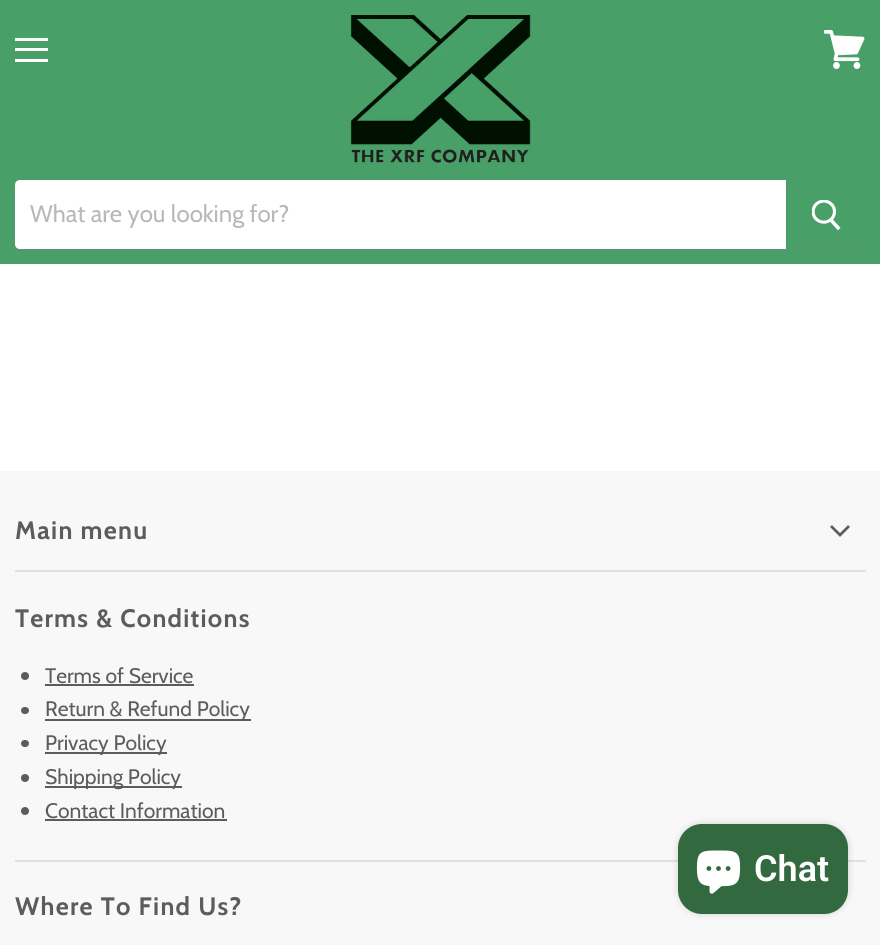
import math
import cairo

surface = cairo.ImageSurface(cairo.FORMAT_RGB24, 880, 945)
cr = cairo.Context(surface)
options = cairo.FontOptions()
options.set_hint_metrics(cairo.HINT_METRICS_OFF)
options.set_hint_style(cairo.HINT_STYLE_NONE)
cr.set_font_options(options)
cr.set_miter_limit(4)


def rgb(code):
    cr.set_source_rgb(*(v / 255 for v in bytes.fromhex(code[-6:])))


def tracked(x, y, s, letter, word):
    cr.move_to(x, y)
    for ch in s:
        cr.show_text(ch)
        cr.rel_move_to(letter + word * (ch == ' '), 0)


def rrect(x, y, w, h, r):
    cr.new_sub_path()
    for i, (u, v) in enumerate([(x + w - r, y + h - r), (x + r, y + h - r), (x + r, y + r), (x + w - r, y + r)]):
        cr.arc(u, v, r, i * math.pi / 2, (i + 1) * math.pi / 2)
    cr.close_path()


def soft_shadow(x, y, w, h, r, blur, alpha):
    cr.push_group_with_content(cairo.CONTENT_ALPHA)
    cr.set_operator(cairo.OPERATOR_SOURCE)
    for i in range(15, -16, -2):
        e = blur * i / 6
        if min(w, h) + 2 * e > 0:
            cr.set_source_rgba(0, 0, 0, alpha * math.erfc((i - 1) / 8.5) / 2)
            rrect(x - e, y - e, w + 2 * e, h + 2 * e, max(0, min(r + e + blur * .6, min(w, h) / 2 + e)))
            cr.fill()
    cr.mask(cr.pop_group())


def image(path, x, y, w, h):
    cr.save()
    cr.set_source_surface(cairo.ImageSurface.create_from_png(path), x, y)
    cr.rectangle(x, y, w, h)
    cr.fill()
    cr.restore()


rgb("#ffffff")
cr.paint()
for x, y, w, h, color in [
    (0, 0, 880, 264, "#48a068"),
    (15, 38, 33, 3, "#ffffff"),
    (15, 48, 33, 3, "#ffffff"),
    (15, 59, 33, 3, "#ffffff"),
]:
    rgb(color)
    cr.rectangle(x, y, w, h)
    cr.fill()
image("img/1.png", 824, 30, 41, 39)
image("img/2.png", 350, 15, 181, 148)
rrect(15, 180, 851, 70, 5)
cr.set_source_rgba(0.498, 0.498, 0.498, 0.2)
cr.stroke()
rgb("#ffffff")
cr.new_path()
cr.move_to(20, 180)
cr.line_to(786, 180)
cr.line_to(786, 249)
cr.line_to(20, 249)
cr.curve_to(17, 249, 15, 247, 15, 244)
cr.line_to(15, 185)
cr.curve_to(15, 182, 17, 180, 20, 180)
cr.close_path()
cr.fill()
rgb("#48a068")
cr.new_path()
cr.move_to(787, 181)
cr.line_to(861, 181)
cr.curve_to(863, 181, 865, 183, 865, 185)
cr.line_to(865, 244)
cr.curve_to(865, 246, 863, 248, 861, 248)
cr.line_to(787, 248)
cr.close_path()
cr.fill_preserve()
cr.stroke()
image("img/3.png", 812, 200, 29, 31)
rgb("#f8f8f8")
cr.rectangle(0, 471, 880, 474)
cr.fill()
rgb("#e1e1e1")
cr.rectangle(15, 570, 851, 2)
cr.fill()
image("img/4.png", 830, 525, 20, 12)
cr.rectangle(15, 860, 851, 2)
cr.fill()
rgb("#5c5c5c")
cr.arc(25, 676, 4, 0, 2 * math.pi)
cr.fill()
cr.rectangle(45, 684, 149, 2)
cr.fill()
rrect(21, 707, 8, 7, 3.5)
cr.fill()
cr.rectangle(45, 719, 206, 2)
cr.fill()
rrect(21, 740, 8, 7, 3.5)
cr.fill()
cr.rectangle(45, 752, 122, 2)
cr.fill()
cr.arc(25, 778, 4, 0, 2 * math.pi)
cr.fill()
cr.rectangle(45, 786, 137, 2)
cr.fill()
cr.arc(25, 811, 4, 0, 2 * math.pi)
cr.fill()
cr.rectangle(45, 819, 182, 2)
cr.fill()
rgb("#000000")
soft_shadow(678, 824, 170, 90, 24, 4, 0.15)
rgb("#32693f")
rrect(678, 824, 170, 90, 24)
cr.fill()
image("img/5.png", 696, 850, 45, 44)
cr.select_font_face("Cabin")
cr.set_font_size(24)
rgb("#b8b8b8")
cr.move_to(30, 222)
cr.show_text("What are you looking for?")
cr.select_font_face("Cabin", cairo.FONT_SLANT_NORMAL, cairo.FONT_WEIGHT_BOLD)
cr.set_font_size(25.25)
rgb("#5c5c5c")
tracked(15, 539, "Main menu", 1.25, 0)
tracked(15, 627, "Terms & Conditions", 1.25, 0)
cr.select_font_face("Cabin")
cr.set_font_size(21)
for x, y, s in [
    (45, 683, "Terms of Service"),
    (45, 716, "Return & Refund Policy"),
    (45, 750, "Privacy Policy"),
    (45, 784, "Shipping Policy"),
    (45, 818, "Contact Information"),
]:
    cr.move_to(x, y)
    cr.show_text(s)
cr.select_font_face("Cabin", cairo.FONT_SLANT_NORMAL, cairo.FONT_WEIGHT_BOLD)
cr.set_font_size(25.25)
tracked(15, 915, "Where To Find Us?", 1.25, 0)
cr.select_font_face("Roboto SemiBold")
cr.set_font_size(36)
rgb("#ffffff")
cr.move_to(754, 881)
cr.show_text("Chat")
surface.write_to_png("page.png")
